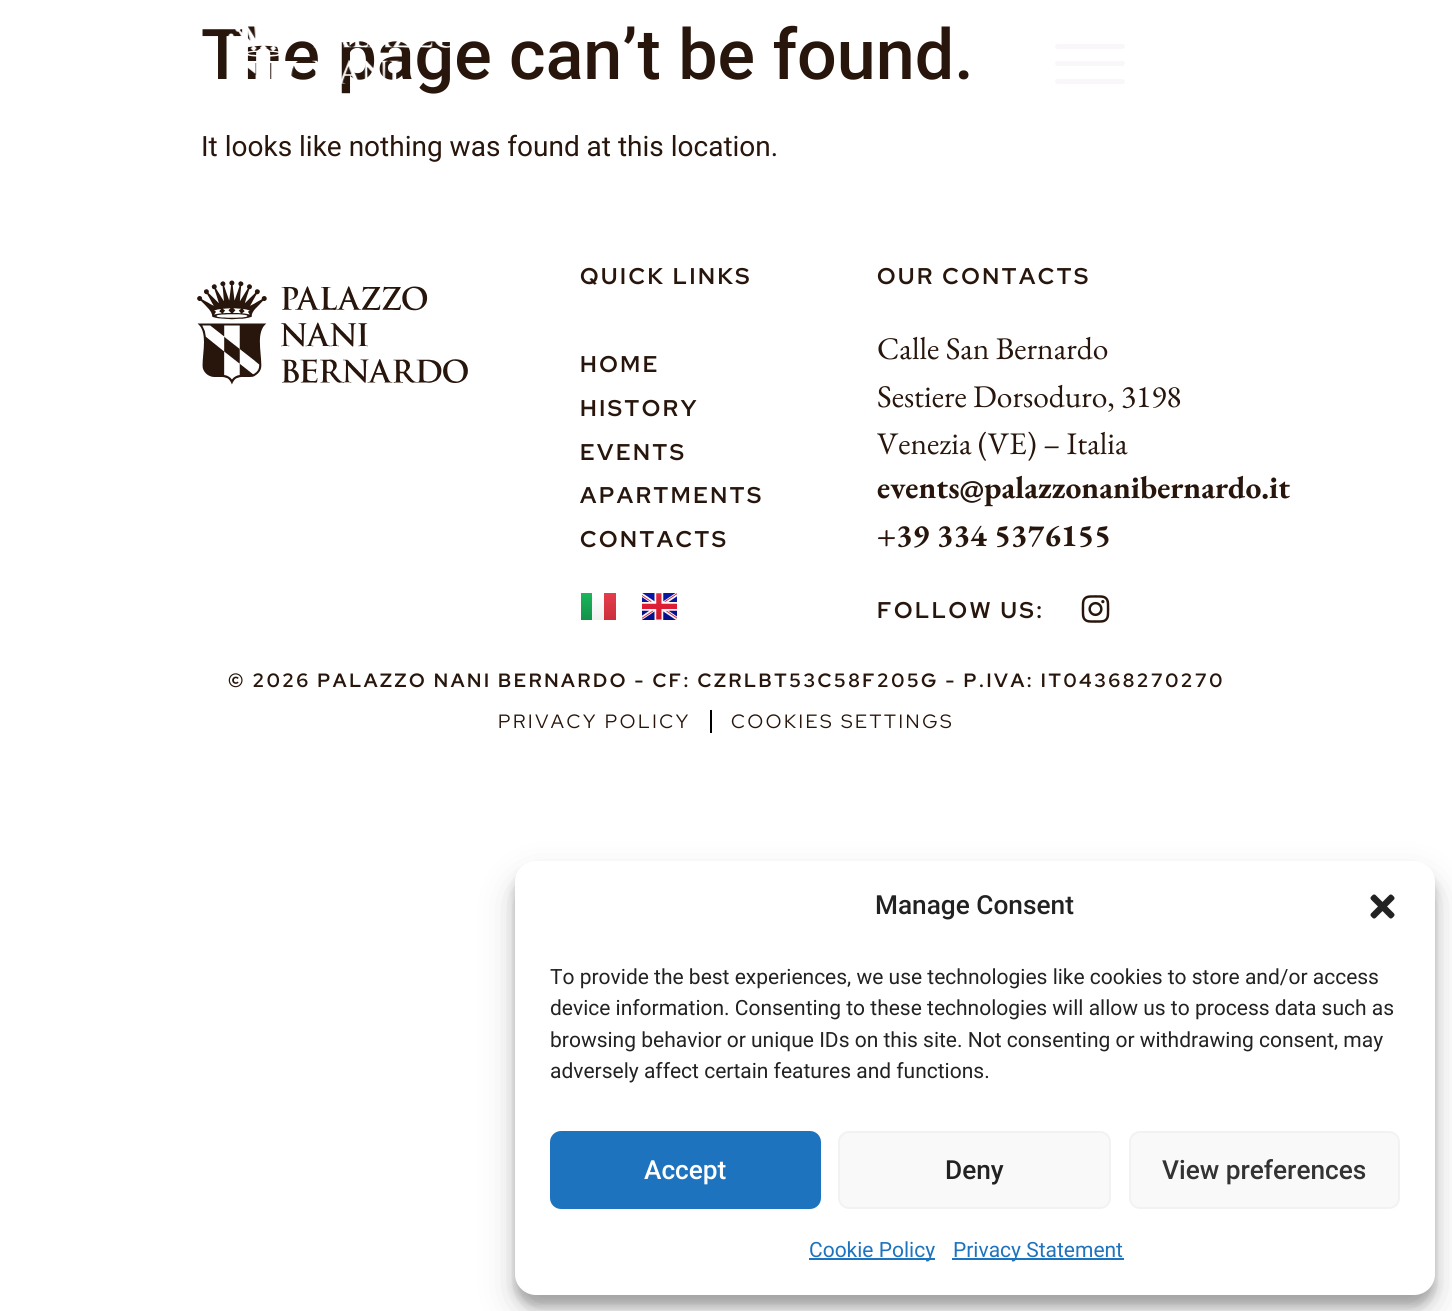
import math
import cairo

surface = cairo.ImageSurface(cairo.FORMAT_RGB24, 1452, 1311)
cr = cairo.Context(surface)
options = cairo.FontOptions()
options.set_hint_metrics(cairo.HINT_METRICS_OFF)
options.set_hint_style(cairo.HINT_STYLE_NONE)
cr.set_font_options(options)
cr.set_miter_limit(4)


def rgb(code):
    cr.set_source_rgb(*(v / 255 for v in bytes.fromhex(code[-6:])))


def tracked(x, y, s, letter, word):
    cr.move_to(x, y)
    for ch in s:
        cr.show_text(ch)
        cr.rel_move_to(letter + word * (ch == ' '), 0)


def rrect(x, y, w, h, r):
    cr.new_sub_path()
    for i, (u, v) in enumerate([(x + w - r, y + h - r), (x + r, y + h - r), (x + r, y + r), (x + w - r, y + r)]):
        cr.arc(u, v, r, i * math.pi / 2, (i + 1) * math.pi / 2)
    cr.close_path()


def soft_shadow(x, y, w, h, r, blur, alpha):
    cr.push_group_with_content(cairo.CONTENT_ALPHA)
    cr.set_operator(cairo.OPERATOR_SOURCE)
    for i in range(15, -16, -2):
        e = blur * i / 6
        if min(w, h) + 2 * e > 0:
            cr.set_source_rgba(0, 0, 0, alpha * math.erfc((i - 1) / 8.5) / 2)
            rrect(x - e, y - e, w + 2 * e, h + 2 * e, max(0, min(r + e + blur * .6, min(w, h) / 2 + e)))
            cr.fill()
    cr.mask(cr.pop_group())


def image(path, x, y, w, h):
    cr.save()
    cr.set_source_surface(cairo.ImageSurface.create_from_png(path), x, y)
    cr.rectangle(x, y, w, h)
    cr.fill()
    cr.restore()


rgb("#ffffff")
cr.paint()
rgb("#faf7fa")
rrect(1055, 61, 70, 5, 2.5)
cr.fill()
rrect(1055, 44, 70, 5, 2.5)
cr.fill()
rrect(1055, 79, 70, 5, 2.5)
cr.fill()
image("img/2.png", 197, 280, 271, 105)
gradient = cairo.LinearGradient(585, 593, 585, 620)
gradient.add_color_stop_rgba(0, 0.106, 0.714, 0.365, 1)
gradient.add_color_stop_rgba(1, 0.075, 0.569, 0.286, 1)
cr.set_source(gradient)
cr.rectangle(581, 593, 11, 27)
cr.fill()
gradient = cairo.LinearGradient(598, 593, 598, 620)
gradient.add_color_stop_rgba(0, 1, 1, 1, 1)
gradient.add_color_stop_rgba(1, 0.941, 0.941, 0.941, 1)
cr.set_source(gradient)
cr.rectangle(592, 598, 12, 22)
cr.fill()
gradient = cairo.LinearGradient(606, 593, 606, 620)
gradient.add_color_stop_rgba(0, 0.894, 0.239, 0.298, 1)
gradient.add_color_stop_rgba(1, 0.8, 0.18, 0.235, 1)
cr.set_source(gradient)
cr.rectangle(604, 593, 12, 27)
cr.fill()
image("img/3.png", 642, 593, 35, 27)
image("img/4.png", 1081, 595, 29, 28)
rgb("#000000")
cr.rectangle(710, 710, 2, 23)
cr.fill()
rgb("#000000")
soft_shadow(515, 872, 920, 434, 21, 5, 0.23)
soft_shadow(515, 879, 920, 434, 21, 17.5, 0.19)
rgb("#ffffff")
rrect(515, 861, 920, 434, 21)
cr.fill()
image("img/5.png", 1370, 894, 25, 25)
rgb("#1e73be")
rrect(551, 1132, 269, 76, 10)
cr.fill_preserve()
cr.stroke()
rgb("#f9f9f9")
rrect(839, 1132, 271, 76, 10)
cr.fill_preserve()
rgb("#f2f2f2")
cr.stroke()
rgb("#f9f9f9")
rrect(1130, 1132, 269, 76, 10)
cr.fill_preserve()
rgb("#f2f2f2")
cr.stroke()
rgb("#1e73be")
cr.rectangle(809, 1258, 126, 2)
cr.fill()
cr.rectangle(952, 1258, 172, 2)
cr.fill()
cr.select_font_face("Roboto Medium")
cr.set_font_size(70)
rgb("#28160c")
cr.move_to(201, 79)
cr.show_text("The page can’t be found.")
cr.select_font_face("Roboto")
cr.set_font_size(28)
cr.move_to(201, 156)
cr.show_text("It looks like nothing was found at this location.")
image("img/1.png", 228, 26, 223, 58)
cr.select_font_face("Red Hat Display", cairo.FONT_SLANT_NORMAL, cairo.FONT_WEIGHT_BOLD)
cr.set_font_size(22.75)
for x, y, s in [
    (580, 284, "QUICK LINKS"),
    (580, 372, "HOME"),
    (580, 416, "HISTORY"),
    (580, 460, "EVENTS"),
    (580, 503, "APARTMENTS"),
    (580, 547, "CONTACTS"),
    (877, 284, "OUR CONTACTS"),
]:
    tracked(x, y, s, 2.62, 0)
cr.select_font_face("EB Garamond")
cr.set_font_size(31.5)
for x, y, s in [
    (877, 359, "Calle San Bernardo"),
    (877, 407, "Sestiere Dorsoduro, 3198"),
    (877, 454, "Venezia (VE) – Italia"),
]:
    cr.move_to(x, y)
    cr.show_text(s)
cr.select_font_face("EB Garamond", cairo.FONT_SLANT_NORMAL, cairo.FONT_WEIGHT_BOLD)
cr.move_to(877, 498)
cr.show_text("events@palazzonanibernardo.it")
cr.move_to(877, 546)
cr.show_text("+39 334 5376155")
cr.select_font_face("Red Hat Display", cairo.FONT_SLANT_NORMAL, cairo.FONT_WEIGHT_BOLD)
cr.set_font_size(22.75)
tracked(877, 618, "FOLLOW US:", 2.62, 0)
cr.set_font_size(19.25)
tracked(228, 687, "© 2026 PALAZZO NANI BERNARDO - CF: CZRLBT53C58F205G - P.IVA: IT04368270270", 2.62, 0)
cr.select_font_face("Red Hat Display")
tracked(498, 728, "PRIVACY POLICY", 2.62, 0)
tracked(731, 728, "COOKIES SETTINGS", 2.62, 0)
cr.select_font_face("Roboto Medium")
cr.set_font_size(26.25)
rgb("#222222")
cr.move_to(875, 914)
cr.show_text("Manage Consent")
cr.select_font_face("Roboto")
cr.set_font_size(21)
for x, y, s in [
    (550, 984, "To provide the best experiences, we use technologies like cookies to store and/or access"),
    (550, 1015, "device information. Consenting to these technologies will allow us to process data such as"),
    (550, 1047, "browsing behavior or unique IDs on this site. Not consenting or withdrawing consent, may"),
    (550, 1078, "adversely affect certain features and functions."),
]:
    cr.move_to(x, y)
    cr.show_text(s)
cr.select_font_face("Roboto Medium")
cr.set_font_size(26.25)
rgb("#ffffff")
cr.move_to(644, 1179)
cr.show_text("Accept")
rgb("#222222")
cr.move_to(945, 1179)
cr.show_text("Deny")
rgb("#333333")
cr.move_to(1162, 1179)
cr.show_text("View preferences")
cr.select_font_face("Roboto")
cr.set_font_size(21)
rgb("#1e73be")
cr.move_to(809, 1257)
cr.show_text("Cookie Policy")
cr.move_to(953, 1257)
cr.show_text("Privacy Statement")
surface.write_to_png("page.png")
